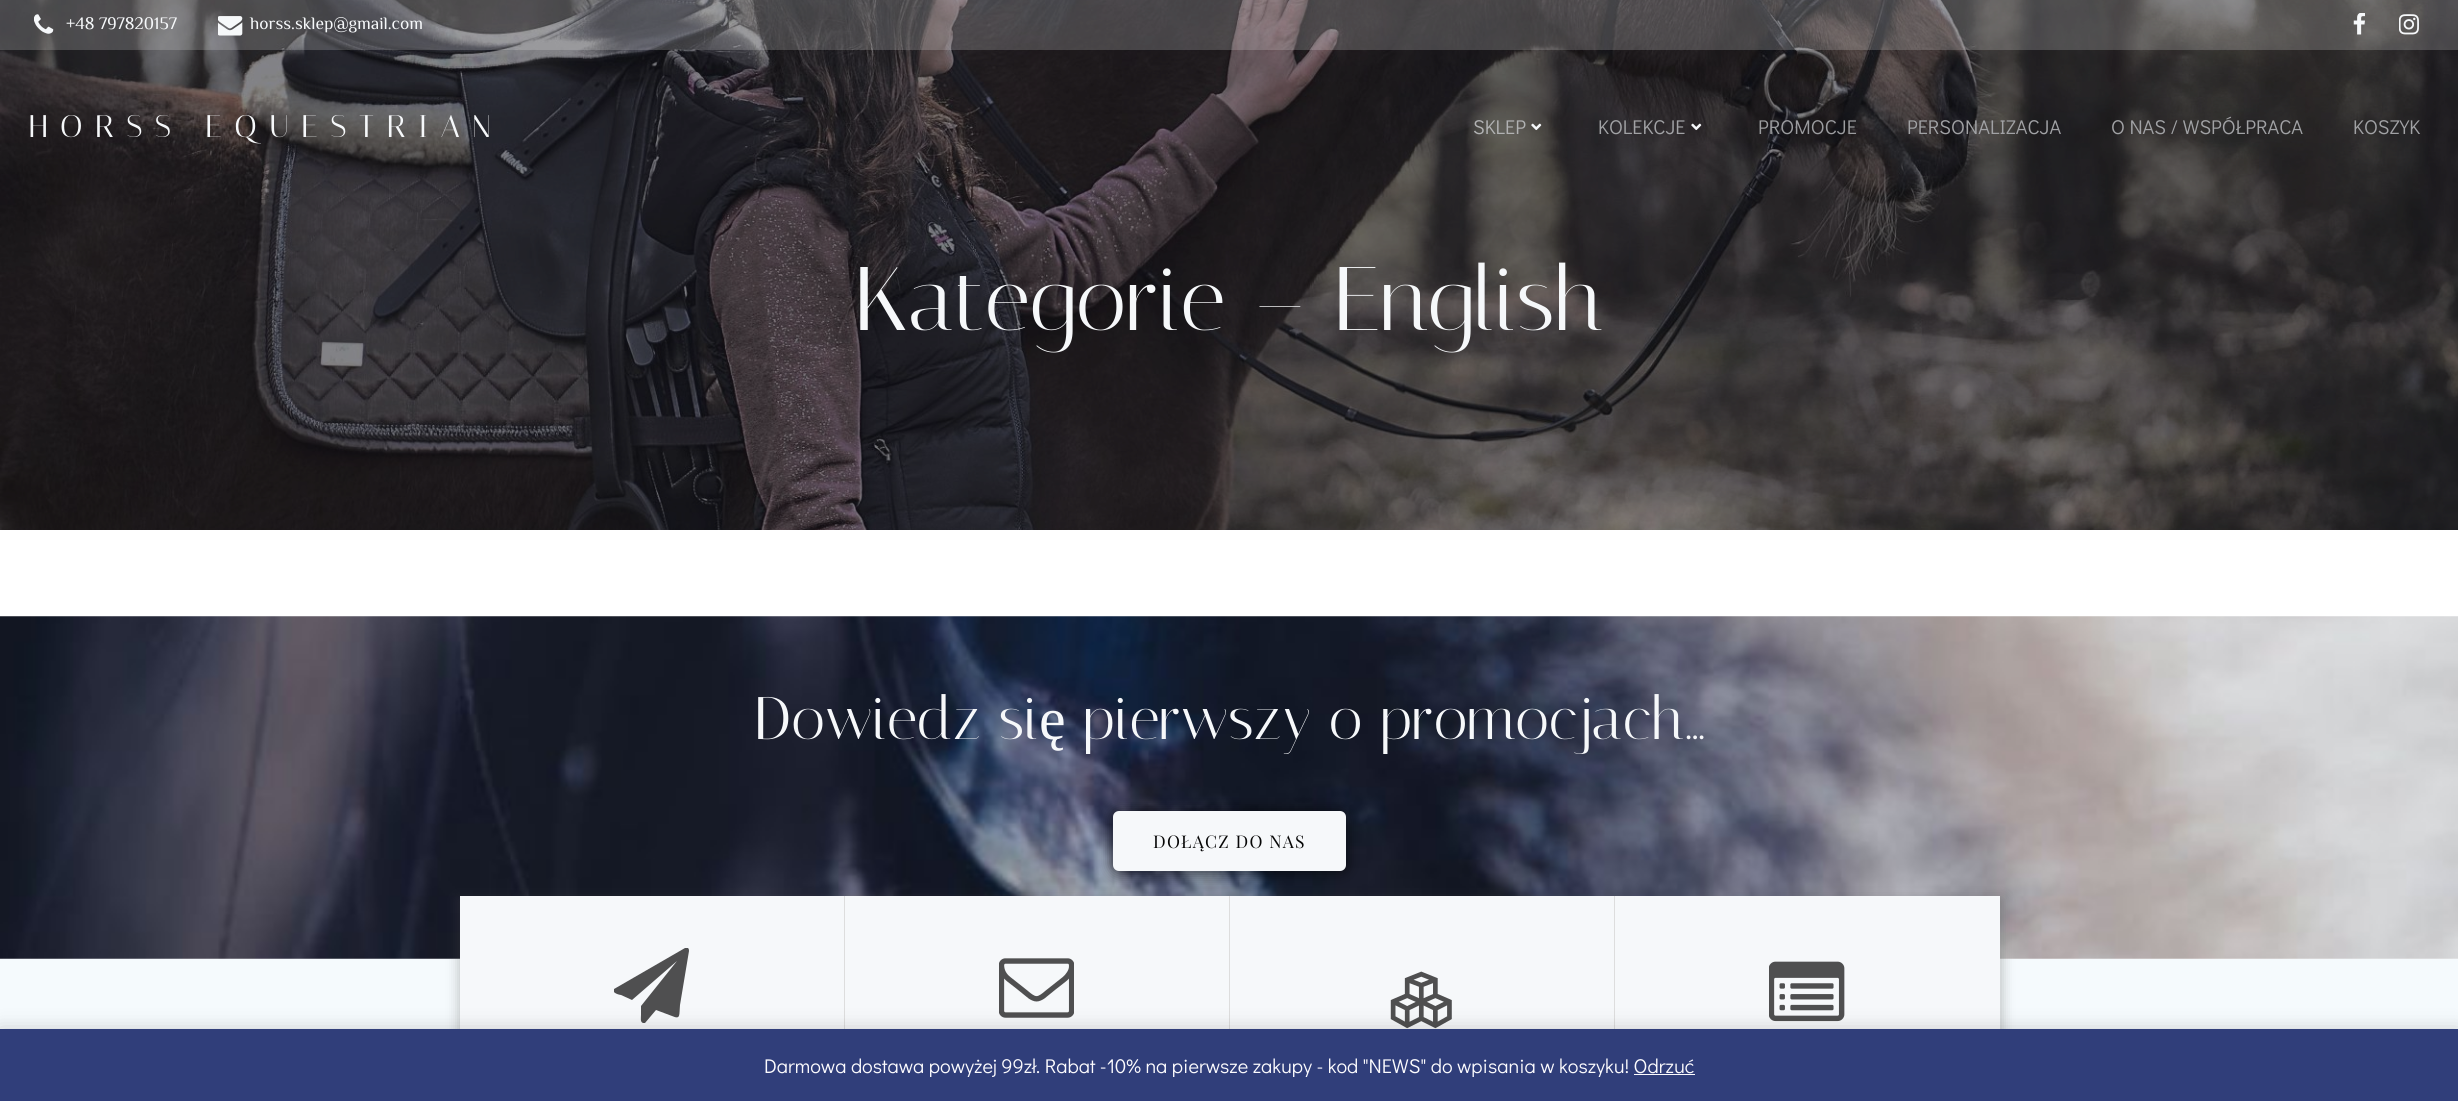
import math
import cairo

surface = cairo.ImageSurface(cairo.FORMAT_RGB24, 2458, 1101)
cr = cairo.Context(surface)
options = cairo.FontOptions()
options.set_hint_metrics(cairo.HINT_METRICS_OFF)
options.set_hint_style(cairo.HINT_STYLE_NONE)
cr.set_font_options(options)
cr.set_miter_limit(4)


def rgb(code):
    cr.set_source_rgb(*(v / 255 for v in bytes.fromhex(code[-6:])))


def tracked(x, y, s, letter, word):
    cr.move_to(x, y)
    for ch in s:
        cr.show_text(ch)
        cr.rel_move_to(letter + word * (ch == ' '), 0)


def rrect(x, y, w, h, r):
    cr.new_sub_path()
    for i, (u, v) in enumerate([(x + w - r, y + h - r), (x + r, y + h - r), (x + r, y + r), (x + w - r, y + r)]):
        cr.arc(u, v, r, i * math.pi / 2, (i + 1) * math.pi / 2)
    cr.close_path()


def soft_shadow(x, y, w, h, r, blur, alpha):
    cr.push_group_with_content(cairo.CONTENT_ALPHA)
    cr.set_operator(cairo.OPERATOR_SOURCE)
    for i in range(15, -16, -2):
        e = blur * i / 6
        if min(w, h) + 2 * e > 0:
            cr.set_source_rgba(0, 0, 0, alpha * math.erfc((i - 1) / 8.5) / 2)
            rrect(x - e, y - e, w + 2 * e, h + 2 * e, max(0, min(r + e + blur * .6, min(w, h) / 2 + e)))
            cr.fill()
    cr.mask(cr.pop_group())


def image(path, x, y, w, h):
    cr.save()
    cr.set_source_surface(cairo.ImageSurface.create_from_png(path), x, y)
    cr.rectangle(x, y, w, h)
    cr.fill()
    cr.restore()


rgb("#ffffff")
cr.paint()
image("img/7.png", 0, 0, 2458, 530)
cr.set_source_rgba(0.965, 0.969, 0.976, 0.2)
cr.rectangle(0, 0, 2458, 50)
cr.fill()
image("img/1.png", 34, 14, 20, 20)
image("img/2.png", 218, 16, 25, 20)
image("img/3.png", 2353, 13, 12, 22)
image("img/4.png", 2399, 14, 20, 21)
image("img/5.png", 1531, 123, 11, 8)
image("img/6.png", 1691, 123, 11, 8)
image("img/8.png", 0, 616, 2458, 343)
rgb("#000000")
soft_shadow(1110, 809, 239, 65, 9, 6, 0.5)
rgb("#f6f8fa")
rrect(1114.5, 812.5, 230, 57, 4.5)
cr.fill_preserve()
cr.set_line_width(3)
cr.stroke()
rgb("#f5fafd")
cr.rectangle(0, 959, 2458, 70)
cr.fill()
rgb("#4a4a4a")
soft_shadow(458, 899, 1545, 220, 0, 6, 0.3)
rgb("#f6f8fa")
cr.rectangle(460, 896, 1540, 133)
cr.fill()
rgb("#dddddd")
cr.rectangle(844, 896, 1, 133)
cr.fill()
cr.save()
cr.rectangle(614, 948, 75, 80)
cr.clip()
rgb("#4f4f50")
cr.new_path()
cr.move_to(688, 948)
cr.curve_to(689, 949, 689, 950, 689, 951)
cr.line_to(680, 1005)
cr.curve_to(679, 1015, 681, 1020, 672, 1016)
cr.line_to(656, 1010)
cr.line_to(645, 1023)
cr.line_to(643, 1023)
cr.curve_to(640, 1022, 641, 1018, 641, 1015)
cr.line_to(641, 1006)
cr.line_to(677, 961)
cr.line_to(632, 1000)
cr.line_to(621, 995)
cr.curve_to(620, 995, 611, 993, 614, 989)
cr.line_to(685, 948)
cr.curve_to(686, 947, 687, 947, 688, 948)
cr.close_path()
cr.fill()
cr.restore()
cr.rectangle(1229, 896, 1, 133)
cr.fill()
image("img/9.png", 999, 958, 75, 60)
cr.rectangle(1614, 896, 1, 133)
cr.fill()
image("img/10.png", 1390, 971, 62, 58)
image("img/11.png", 1769, 961, 76, 61)
rgb("#000000")
soft_shadow(0, 1030, 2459, 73, 0, 10, 0.2)
rgb("#303e7a")
cr.rectangle(0, 1029, 2458, 72)
cr.fill()
rgb("#fcfbfe")
cr.rectangle(1634, 1074, 61, 1)
cr.fill()
cr.select_font_face("El Messiri")
cr.set_font_size(17.5)
rgb("#f6f8fa")
cr.move_to(66, 29)
cr.show_text("+48 797820157")
cr.move_to(250, 29)
cr.show_text("horss.sklep@gmail.com")
cr.select_font_face("Italiana")
cr.set_font_size(31.25)
tracked(29, 137, "HORSS EQUESTRIAN", 12.5, 0)
cr.select_font_face("Didact Gothic")
cr.set_font_size(20)
rgb("#b1b2b3")
cr.move_to(1473, 134)
cr.show_text("SKLEP")
rgb("#a1a2a5")
cr.move_to(1598, 134)
cr.show_text("KOLEKCJE")
rgb("#9b9c9f")
cr.move_to(1758, 134)
cr.show_text("PROMOCJE")
rgb("#a1a2a5")
for x, y, s in [
    (1907, 134, "PERSONALIZACJA"),
    (2111, 134, "O NAS / WSPÓŁPRACA"),
    (2353, 134, "KOSZYK"),
]:
    cr.move_to(x, y)
    cr.show_text(s)
cr.select_font_face("Italiana")
cr.set_font_size(90)
rgb("#f6f8fa")
cr.move_to(854, 330)
cr.show_text("Kategorie – English")
cr.set_font_size(60)
cr.move_to(754, 739)
cr.show_text("Dowiedz si")
cr.select_font_face("Liberation Serif")
cr.move_to(1039, 739)
cr.show_text("ę")
cr.select_font_face("Italiana")
cr.move_to(1083, 739)
cr.show_text("pierwszy o promocjach...")
cr.select_font_face("Playfair Display")
cr.set_font_size(17.5)
rgb("#060606")
tracked(1153, 848, "DOŁĄCZ DO NAS", 1.25, 0)
cr.select_font_face("Didact Gothic")
cr.set_font_size(20)
rgb("#fcfbfe")
cr.move_to(764, 1073)
cr.show_text("Darmowa dostawa powyżej 99zł. Rabat -10% na pierwsze zakupy - kod \"NEWS\" do wpisania w koszyku! Odrzuć")
surface.write_to_png("page.png")
